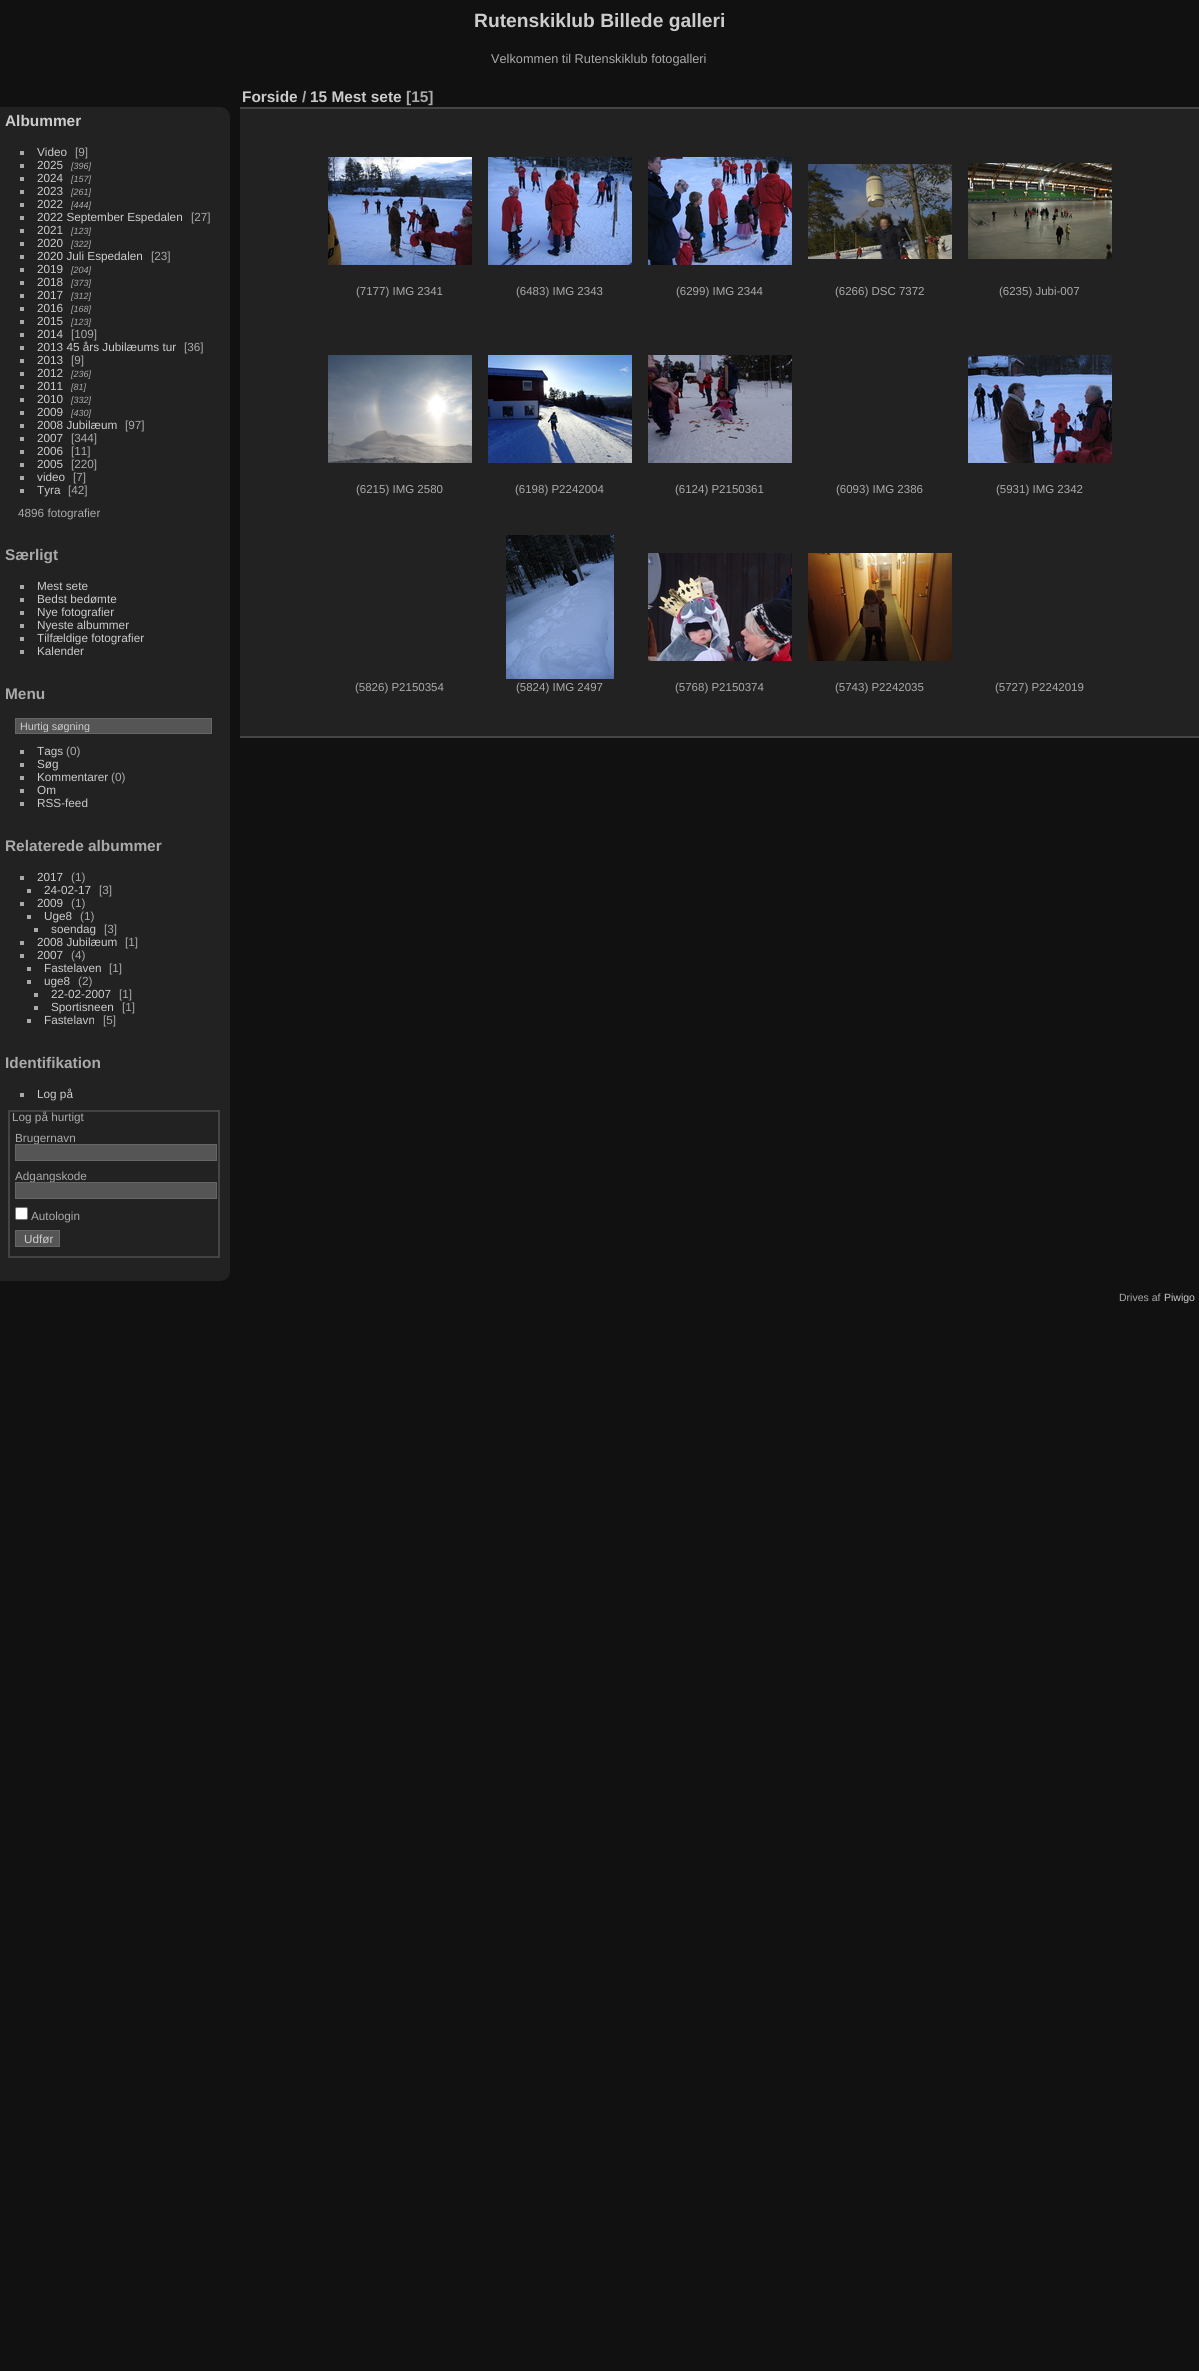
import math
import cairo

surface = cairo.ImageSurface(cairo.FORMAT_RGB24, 1199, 2371)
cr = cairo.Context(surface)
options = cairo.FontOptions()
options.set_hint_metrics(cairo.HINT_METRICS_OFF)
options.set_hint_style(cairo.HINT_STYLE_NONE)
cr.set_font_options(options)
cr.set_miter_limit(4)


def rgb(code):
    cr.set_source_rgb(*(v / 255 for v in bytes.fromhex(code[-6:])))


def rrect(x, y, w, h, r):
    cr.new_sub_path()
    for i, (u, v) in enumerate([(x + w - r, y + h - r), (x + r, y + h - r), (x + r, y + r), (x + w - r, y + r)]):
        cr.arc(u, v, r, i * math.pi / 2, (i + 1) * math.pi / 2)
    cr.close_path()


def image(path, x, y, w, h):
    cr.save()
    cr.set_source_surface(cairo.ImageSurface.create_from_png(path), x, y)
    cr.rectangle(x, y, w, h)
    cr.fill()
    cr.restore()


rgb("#111111")
cr.paint()
rgb("#222222")
cr.new_path()
cr.move_to(0, 107)
cr.line_to(220, 107)
cr.curve_to(225.5, 107, 230, 111.5, 230, 117)
cr.line_to(230, 1271)
cr.curve_to(230, 1276.5, 225.5, 1281, 220, 1281)
cr.line_to(0, 1281)
cr.close_path()
cr.fill()
for x, y, w, h, color in [
    (20, 151, 4, 4, "#aaaaaa"),
    (20, 164, 4, 4, "#aaaaaa"),
    (20, 177, 4, 4, "#aaaaaa"),
    (20, 190, 4, 4, "#aaaaaa"),
    (20, 203, 4, 4, "#aaaaaa"),
    (20, 216, 4, 4, "#aaaaaa"),
    (20, 229, 4, 4, "#aaaaaa"),
    (20, 242, 4, 4, "#aaaaaa"),
    (20, 255, 4, 4, "#aaaaaa"),
    (20, 268, 4, 4, "#aaaaaa"),
    (20, 281, 4, 4, "#aaaaaa"),
    (20, 294, 4, 4, "#aaaaaa"),
    (20, 307, 4, 4, "#aaaaaa"),
    (20, 320, 4, 4, "#aaaaaa"),
    (20, 333, 4, 4, "#aaaaaa"),
    (20, 346, 4, 4, "#aaaaaa"),
    (20, 359, 4, 4, "#aaaaaa"),
    (20, 372, 4, 4, "#aaaaaa"),
    (20, 385, 4, 4, "#aaaaaa"),
    (20, 398, 4, 4, "#aaaaaa"),
    (20, 411, 4, 4, "#aaaaaa"),
    (20, 424, 4, 4, "#aaaaaa"),
    (20, 437, 4, 4, "#aaaaaa"),
    (20, 450, 4, 4, "#aaaaaa"),
    (20, 463, 4, 4, "#aaaaaa"),
    (20, 476, 4, 4, "#aaaaaa"),
    (20, 489, 4, 4, "#aaaaaa"),
    (20, 585, 4, 4, "#aaaaaa"),
    (20, 598, 4, 4, "#aaaaaa"),
    (20, 611, 4, 4, "#aaaaaa"),
    (20, 624, 4, 4, "#aaaaaa"),
    (20, 637, 4, 4, "#aaaaaa"),
    (20, 650, 4, 4, "#aaaaaa"),
]:
    rgb(color)
    cr.rectangle(x, y, w, h)
    cr.fill()
rgb("#555555")
cr.rectangle(15.5, 718.5, 196, 15)
cr.fill_preserve()
rgb("#666666")
cr.set_line_width(1)
cr.stroke()
for x, y, w, h, color in [
    (20, 750, 4, 4, "#aaaaaa"),
    (20, 763, 4, 4, "#aaaaaa"),
    (20, 776, 4, 4, "#aaaaaa"),
    (20, 789, 4, 4, "#aaaaaa"),
    (20, 802, 4, 4, "#aaaaaa"),
    (20, 876, 4, 4, "#aaaaaa"),
    (27, 889, 4, 4, "#aaaaaa"),
    (20, 902, 4, 4, "#aaaaaa"),
    (27, 915, 4, 4, "#aaaaaa"),
    (34, 928, 4, 4, "#aaaaaa"),
    (20, 941, 4, 4, "#aaaaaa"),
    (20, 954, 4, 4, "#aaaaaa"),
    (27, 967, 4, 4, "#aaaaaa"),
    (27, 980, 4, 4, "#aaaaaa"),
    (34, 993, 4, 4, "#aaaaaa"),
    (34, 1006, 4, 4, "#aaaaaa"),
    (27, 1019, 4, 4, "#aaaaaa"),
    (20, 1093, 4, 4, "#aaaaaa"),
]:
    rgb(color)
    cr.rectangle(x, y, w, h)
    cr.fill()
cr.rectangle(9, 1111, 210, 146)
rgb("#444444")
cr.set_line_width(2)
cr.stroke()
rgb("#ffffff")
rrect(15.5, 1207.5, 12, 12, 1.5)
cr.fill_preserve()
rgb("#767676")
cr.set_line_width(1)
cr.stroke()
rgb("#555555")
cr.rectangle(15.5, 1230.5, 44, 16)
cr.fill_preserve()
rgb("#666666")
cr.stroke()
for x, y, w, h, color in [
    (240, 109, 959, 627, "#222222"),
    (240, 736, 959, 2, "#444444"),
    (240, 107, 959, 2, "#444444"),
]:
    rgb(color)
    cr.rectangle(x, y, w, h)
    cr.fill()
image("img/1.png", 328, 157, 144, 108)
image("img/2.png", 488, 157, 144, 108)
image("img/3.png", 648, 157, 144, 108)
image("img/4.png", 808, 164, 144, 95)
image("img/5.png", 968, 163, 144, 96)
image("img/6.png", 328, 355, 144, 108)
image("img/7.png", 488, 355, 144, 108)
image("img/8.png", 648, 355, 144, 108)
image("img/9.png", 968, 355, 144, 108)
image("img/10.png", 506, 535, 108, 144)
image("img/11.png", 648, 553, 144, 108)
image("img/12.png", 808, 553, 144, 108)
cr.select_font_face("Liberation Sans", cairo.FONT_SLANT_NORMAL, cairo.FONT_WEIGHT_BOLD)
cr.set_font_size(19.25)
rgb("#cccccc")
cr.move_to(474, 27)
cr.show_text("Rutenskiklub Billede galleri")
cr.select_font_face("Liberation Sans")
cr.set_font_size(12.75)
rgb("#aaaaaa")
cr.move_to(491, 63)
cr.show_text("Velkommen til Rutenskiklub fotogalleri")
cr.select_font_face("Liberation Sans", cairo.FONT_SLANT_NORMAL, cairo.FONT_WEIGHT_BOLD)
cr.set_font_size(15.4)
rgb("#cccccc")
cr.move_to(5, 126)
cr.show_text("Albummer")
cr.select_font_face("Liberation Sans")
cr.set_font_size(11.75)
cr.move_to(37, 156)
cr.show_text("Video")
rgb("#aaaaaa")
cr.move_to(75, 156)
cr.show_text("[9]")
rgb("#cccccc")
cr.move_to(37, 169)
cr.show_text("2025")
cr.select_font_face("Liberation Sans", cairo.FONT_SLANT_ITALIC)
cr.set_font_size(9)
rgb("#aaaaaa")
cr.move_to(71, 169)
cr.show_text("[396]")
cr.select_font_face("Liberation Sans")
cr.set_font_size(11.75)
rgb("#cccccc")
cr.move_to(37, 182)
cr.show_text("2024")
cr.select_font_face("Liberation Sans", cairo.FONT_SLANT_ITALIC)
cr.set_font_size(9)
rgb("#aaaaaa")
cr.move_to(71, 182)
cr.show_text("[157]")
cr.select_font_face("Liberation Sans")
cr.set_font_size(11.75)
rgb("#cccccc")
cr.move_to(37, 195)
cr.show_text("2023")
cr.select_font_face("Liberation Sans", cairo.FONT_SLANT_ITALIC)
cr.set_font_size(9)
rgb("#aaaaaa")
cr.move_to(71, 195)
cr.show_text("[261]")
cr.select_font_face("Liberation Sans")
cr.set_font_size(11.75)
rgb("#cccccc")
cr.move_to(37, 208)
cr.show_text("2022")
cr.select_font_face("Liberation Sans", cairo.FONT_SLANT_ITALIC)
cr.set_font_size(9)
rgb("#aaaaaa")
cr.move_to(71, 208)
cr.show_text("[444]")
cr.select_font_face("Liberation Sans")
cr.set_font_size(11.75)
rgb("#cccccc")
cr.move_to(37, 221)
cr.show_text("2022 September Espedalen")
rgb("#aaaaaa")
cr.move_to(191, 221)
cr.show_text("[27]")
rgb("#cccccc")
cr.move_to(37, 234)
cr.show_text("2021")
cr.select_font_face("Liberation Sans", cairo.FONT_SLANT_ITALIC)
cr.set_font_size(9)
rgb("#aaaaaa")
cr.move_to(71, 234)
cr.show_text("[123]")
cr.select_font_face("Liberation Sans")
cr.set_font_size(11.75)
rgb("#cccccc")
cr.move_to(37, 247)
cr.show_text("2020")
cr.select_font_face("Liberation Sans", cairo.FONT_SLANT_ITALIC)
cr.set_font_size(9)
rgb("#aaaaaa")
cr.move_to(71, 247)
cr.show_text("[322]")
cr.select_font_face("Liberation Sans")
cr.set_font_size(11.75)
rgb("#cccccc")
cr.move_to(37, 260)
cr.show_text("2020 Juli Espedalen")
rgb("#aaaaaa")
cr.move_to(151, 260)
cr.show_text("[23]")
rgb("#cccccc")
cr.move_to(37, 273)
cr.show_text("2019")
cr.select_font_face("Liberation Sans", cairo.FONT_SLANT_ITALIC)
cr.set_font_size(9)
rgb("#aaaaaa")
cr.move_to(71, 273)
cr.show_text("[204]")
cr.select_font_face("Liberation Sans")
cr.set_font_size(11.75)
rgb("#cccccc")
cr.move_to(37, 286)
cr.show_text("2018")
cr.select_font_face("Liberation Sans", cairo.FONT_SLANT_ITALIC)
cr.set_font_size(9)
rgb("#aaaaaa")
cr.move_to(71, 286)
cr.show_text("[373]")
cr.select_font_face("Liberation Sans")
cr.set_font_size(11.75)
rgb("#cccccc")
cr.move_to(37, 299)
cr.show_text("2017")
cr.select_font_face("Liberation Sans", cairo.FONT_SLANT_ITALIC)
cr.set_font_size(9)
rgb("#aaaaaa")
cr.move_to(71, 299)
cr.show_text("[312]")
cr.select_font_face("Liberation Sans")
cr.set_font_size(11.75)
rgb("#cccccc")
cr.move_to(37, 312)
cr.show_text("2016")
cr.select_font_face("Liberation Sans", cairo.FONT_SLANT_ITALIC)
cr.set_font_size(9)
rgb("#aaaaaa")
cr.move_to(71, 312)
cr.show_text("[168]")
cr.select_font_face("Liberation Sans")
cr.set_font_size(11.75)
rgb("#cccccc")
cr.move_to(37, 325)
cr.show_text("2015")
cr.select_font_face("Liberation Sans", cairo.FONT_SLANT_ITALIC)
cr.set_font_size(9)
rgb("#aaaaaa")
cr.move_to(71, 325)
cr.show_text("[123]")
cr.select_font_face("Liberation Sans")
cr.set_font_size(11.75)
rgb("#cccccc")
cr.move_to(37, 338)
cr.show_text("2014")
rgb("#aaaaaa")
cr.move_to(71, 338)
cr.show_text("[109]")
rgb("#cccccc")
cr.move_to(37, 351)
cr.show_text("2013 45 års Jubilæums tur")
rgb("#aaaaaa")
cr.move_to(184, 351)
cr.show_text("[36]")
rgb("#cccccc")
cr.move_to(37, 364)
cr.show_text("2013")
rgb("#aaaaaa")
cr.move_to(71, 364)
cr.show_text("[9]")
rgb("#cccccc")
cr.move_to(37, 377)
cr.show_text("2012")
cr.select_font_face("Liberation Sans", cairo.FONT_SLANT_ITALIC)
cr.set_font_size(9)
rgb("#aaaaaa")
cr.move_to(71, 377)
cr.show_text("[236]")
cr.select_font_face("Liberation Sans")
cr.set_font_size(11.75)
rgb("#cccccc")
cr.move_to(37, 390)
cr.show_text("2011")
cr.select_font_face("Liberation Sans", cairo.FONT_SLANT_ITALIC)
cr.set_font_size(9)
rgb("#aaaaaa")
cr.move_to(71, 390)
cr.show_text("[81]")
cr.select_font_face("Liberation Sans")
cr.set_font_size(11.75)
rgb("#cccccc")
cr.move_to(37, 403)
cr.show_text("2010")
cr.select_font_face("Liberation Sans", cairo.FONT_SLANT_ITALIC)
cr.set_font_size(9)
rgb("#aaaaaa")
cr.move_to(71, 403)
cr.show_text("[332]")
cr.select_font_face("Liberation Sans")
cr.set_font_size(11.75)
rgb("#cccccc")
cr.move_to(37, 416)
cr.show_text("2009")
cr.select_font_face("Liberation Sans", cairo.FONT_SLANT_ITALIC)
cr.set_font_size(9)
rgb("#aaaaaa")
cr.move_to(71, 416)
cr.show_text("[430]")
cr.select_font_face("Liberation Sans")
cr.set_font_size(11.75)
rgb("#cccccc")
cr.move_to(37, 429)
cr.show_text("2008 Jubilæum")
rgb("#aaaaaa")
cr.move_to(125, 429)
cr.show_text("[97]")
rgb("#cccccc")
cr.move_to(37, 442)
cr.show_text("2007")
rgb("#aaaaaa")
cr.move_to(71, 442)
cr.show_text("[344]")
rgb("#cccccc")
cr.move_to(37, 455)
cr.show_text("2006")
rgb("#aaaaaa")
cr.move_to(71, 455)
cr.show_text("[11]")
rgb("#cccccc")
cr.move_to(37, 468)
cr.show_text("2005")
rgb("#aaaaaa")
cr.move_to(71, 468)
cr.show_text("[220]")
rgb("#cccccc")
cr.move_to(37, 481)
cr.show_text("video")
rgb("#aaaaaa")
cr.move_to(73, 481)
cr.show_text("[7]")
rgb("#cccccc")
cr.move_to(37, 494)
cr.show_text("Tyra")
rgb("#aaaaaa")
cr.move_to(68, 494)
cr.show_text("[42]")
cr.move_to(18, 517)
cr.show_text("4896 fotografier")
cr.select_font_face("Liberation Sans", cairo.FONT_SLANT_NORMAL, cairo.FONT_WEIGHT_BOLD)
cr.set_font_size(15.4)
cr.move_to(5, 560)
cr.show_text("Særligt")
cr.select_font_face("Liberation Sans")
cr.set_font_size(11.75)
rgb("#cccccc")
for x, y, s in [
    (37, 590, "Mest sete"),
    (37, 603, "Bedst bedømte"),
    (37, 616, "Nye fotografier"),
    (37, 629, "Nyeste albummer"),
    (37, 642, "Tilfældige fotografier"),
    (37, 655, "Kalender"),
]:
    cr.move_to(x, y)
    cr.show_text(s)
cr.select_font_face("Liberation Sans", cairo.FONT_SLANT_NORMAL, cairo.FONT_WEIGHT_BOLD)
cr.set_font_size(15.4)
rgb("#aaaaaa")
cr.move_to(5, 699)
cr.show_text("Menu")
cr.save()
cr.rectangle(18, 720, 191, 12)
cr.clip()
cr.select_font_face("Liberation Sans")
cr.set_font_size(10.75)
rgb("#cccccc")
cr.move_to(20, 730)
cr.show_text("Hurtig søgning")
cr.restore()
cr.select_font_face("Liberation Sans")
cr.set_font_size(11.75)
rgb("#cccccc")
cr.move_to(37, 755)
cr.show_text("Tags")
rgb("#aaaaaa")
cr.move_to(66, 755)
cr.show_text("(0)")
rgb("#cccccc")
cr.move_to(37, 768)
cr.show_text("Søg")
cr.move_to(37, 781)
cr.show_text("Kommentarer")
rgb("#aaaaaa")
cr.move_to(111, 781)
cr.show_text("(0)")
rgb("#cccccc")
cr.move_to(37, 794)
cr.show_text("Om")
cr.move_to(37, 807)
cr.show_text("RSS-feed")
cr.select_font_face("Liberation Sans", cairo.FONT_SLANT_NORMAL, cairo.FONT_WEIGHT_BOLD)
cr.set_font_size(15.4)
rgb("#aaaaaa")
cr.move_to(5, 851)
cr.show_text("Relaterede albummer")
cr.select_font_face("Liberation Sans")
cr.set_font_size(11.75)
rgb("#cccccc")
cr.move_to(37, 881)
cr.show_text("2017")
rgb("#aaaaaa")
cr.move_to(71, 881)
cr.show_text("(1)")
rgb("#cccccc")
cr.move_to(44, 894)
cr.show_text("24-02-17")
rgb("#aaaaaa")
cr.move_to(99, 894)
cr.show_text("[3]")
rgb("#cccccc")
cr.move_to(37, 907)
cr.show_text("2009")
rgb("#aaaaaa")
cr.move_to(71, 907)
cr.show_text("(1)")
rgb("#cccccc")
cr.move_to(44, 920)
cr.show_text("Uge8")
rgb("#aaaaaa")
cr.move_to(80, 920)
cr.show_text("(1)")
rgb("#cccccc")
cr.move_to(51, 933)
cr.show_text("soendag")
rgb("#aaaaaa")
cr.move_to(104, 933)
cr.show_text("[3]")
rgb("#cccccc")
cr.move_to(37, 946)
cr.show_text("2008 Jubilæum")
rgb("#aaaaaa")
cr.move_to(125, 946)
cr.show_text("[1]")
rgb("#cccccc")
cr.move_to(37, 959)
cr.show_text("2007")
rgb("#aaaaaa")
cr.move_to(71, 959)
cr.show_text("(4)")
rgb("#cccccc")
cr.move_to(44, 972)
cr.show_text("Fastelaven")
rgb("#aaaaaa")
cr.move_to(109, 972)
cr.show_text("[1]")
rgb("#cccccc")
cr.move_to(44, 985)
cr.show_text("uge8")
rgb("#aaaaaa")
cr.move_to(78, 985)
cr.show_text("(2)")
rgb("#cccccc")
cr.move_to(51, 998)
cr.show_text("22-02-2007")
rgb("#aaaaaa")
cr.move_to(119, 998)
cr.show_text("[1]")
rgb("#cccccc")
cr.move_to(51, 1011)
cr.show_text("Sportisneen")
rgb("#aaaaaa")
cr.move_to(122, 1011)
cr.show_text("[1]")
rgb("#cccccc")
cr.move_to(44, 1024)
cr.show_text("Fastelavn")
rgb("#aaaaaa")
cr.move_to(103, 1024)
cr.show_text("[5]")
cr.select_font_face("Liberation Sans", cairo.FONT_SLANT_NORMAL, cairo.FONT_WEIGHT_BOLD)
cr.set_font_size(15.4)
cr.move_to(5, 1068)
cr.show_text("Identifikation")
cr.select_font_face("Liberation Sans")
cr.set_font_size(11.75)
rgb("#cccccc")
cr.move_to(37, 1098)
cr.show_text("Log på")
rgb("#aaaaaa")
cr.move_to(12, 1121)
cr.show_text("Log på hurtigt")
cr.move_to(15, 1142)
cr.show_text("Brugernavn")
rgb("#555555")
cr.rectangle(15.5, 1144.5, 201, 16)
cr.fill_preserve()
rgb("#666666")
cr.stroke()
rgb("#aaaaaa")
cr.move_to(15, 1180)
cr.show_text("Adgangskode")
rgb("#555555")
cr.rectangle(15.5, 1182.5, 201, 16)
cr.fill_preserve()
rgb("#666666")
cr.stroke()
rgb("#aaaaaa")
cr.move_to(31, 1220)
cr.show_text("Autologin")
rgb("#cccccc")
cr.move_to(24, 1243)
cr.show_text("Udfør")
cr.select_font_face("Liberation Sans", cairo.FONT_SLANT_NORMAL, cairo.FONT_WEIGHT_BOLD)
cr.set_font_size(15.4)
cr.move_to(242, 102)
cr.show_text("Forside")
rgb("#aaaaaa")
cr.move_to(302, 102)
cr.show_text("/")
rgb("#cccccc")
cr.move_to(310, 102)
cr.show_text("15 Mest sete")
rgb("#aaaaaa")
cr.move_to(406, 102)
cr.show_text("[15]")
cr.select_font_face("Liberation Sans")
cr.set_font_size(11.5)
for x, y, s in [
    (356, 295, "(7177) IMG 2341"),
    (516, 295, "(6483) IMG 2343"),
    (676, 295, "(6299) IMG 2344"),
    (835, 295, "(6266) DSC 7372"),
    (999, 295, "(6235) Jubi-007"),
    (356, 493, "(6215) IMG 2580"),
    (515, 493, "(6198) P2242004"),
    (675, 493, "(6124) P2150361"),
    (836, 493, "(6093) IMG 2386"),
    (996, 493, "(5931) IMG 2342"),
    (355, 691, "(5826) P2150354"),
    (516, 691, "(5824) IMG 2497"),
    (675, 691, "(5768) P2150374"),
    (835, 691, "(5743) P2242035"),
    (995, 691, "(5727) P2242019"),
]:
    cr.move_to(x, y)
    cr.show_text(s)
cr.set_font_size(10.5)
cr.move_to(1119, 1301)
cr.show_text("Drives af")
rgb("#cccccc")
cr.move_to(1164, 1301)
cr.show_text("Piwigo")
surface.write_to_png("page.png")
